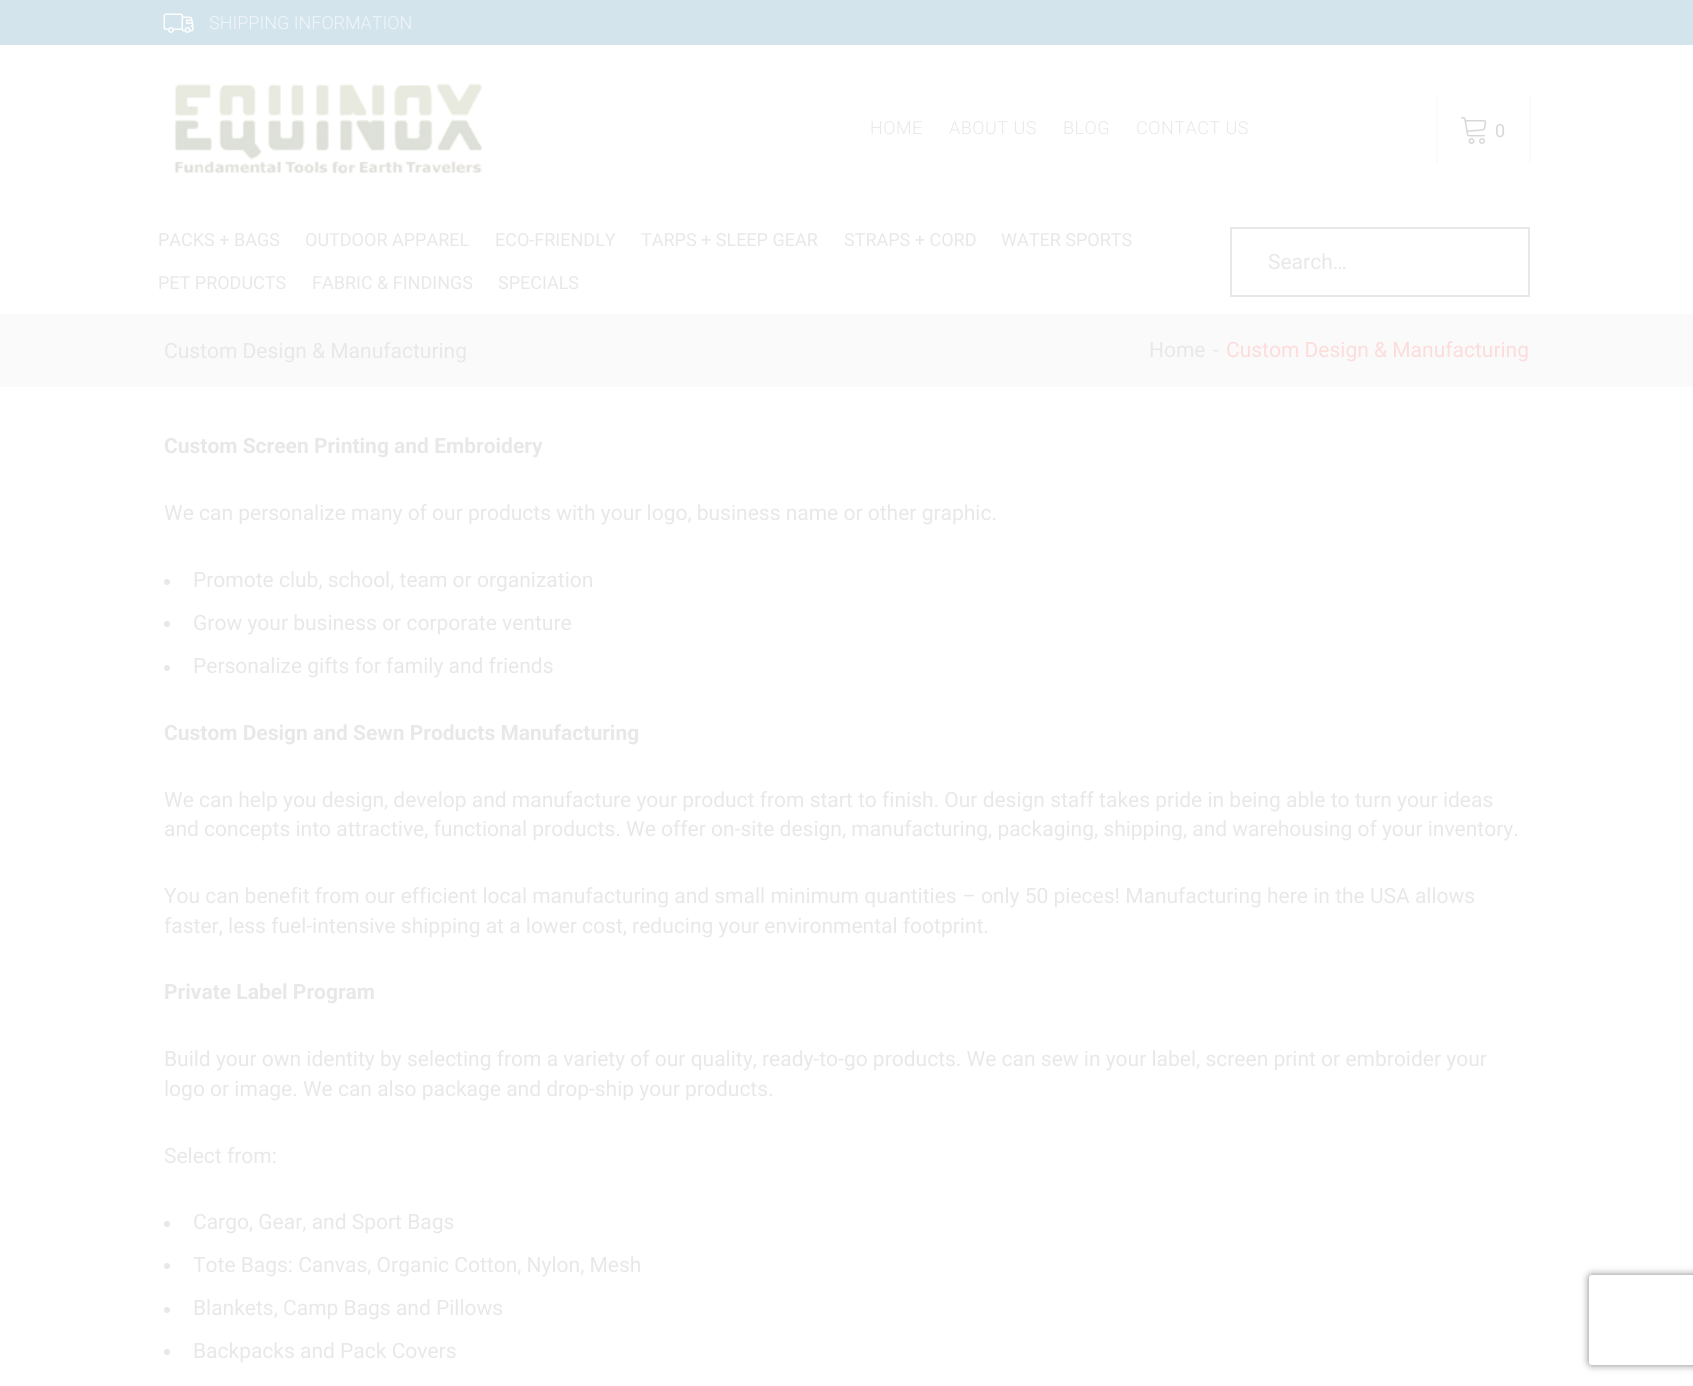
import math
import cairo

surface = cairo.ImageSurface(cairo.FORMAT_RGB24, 1693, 1386)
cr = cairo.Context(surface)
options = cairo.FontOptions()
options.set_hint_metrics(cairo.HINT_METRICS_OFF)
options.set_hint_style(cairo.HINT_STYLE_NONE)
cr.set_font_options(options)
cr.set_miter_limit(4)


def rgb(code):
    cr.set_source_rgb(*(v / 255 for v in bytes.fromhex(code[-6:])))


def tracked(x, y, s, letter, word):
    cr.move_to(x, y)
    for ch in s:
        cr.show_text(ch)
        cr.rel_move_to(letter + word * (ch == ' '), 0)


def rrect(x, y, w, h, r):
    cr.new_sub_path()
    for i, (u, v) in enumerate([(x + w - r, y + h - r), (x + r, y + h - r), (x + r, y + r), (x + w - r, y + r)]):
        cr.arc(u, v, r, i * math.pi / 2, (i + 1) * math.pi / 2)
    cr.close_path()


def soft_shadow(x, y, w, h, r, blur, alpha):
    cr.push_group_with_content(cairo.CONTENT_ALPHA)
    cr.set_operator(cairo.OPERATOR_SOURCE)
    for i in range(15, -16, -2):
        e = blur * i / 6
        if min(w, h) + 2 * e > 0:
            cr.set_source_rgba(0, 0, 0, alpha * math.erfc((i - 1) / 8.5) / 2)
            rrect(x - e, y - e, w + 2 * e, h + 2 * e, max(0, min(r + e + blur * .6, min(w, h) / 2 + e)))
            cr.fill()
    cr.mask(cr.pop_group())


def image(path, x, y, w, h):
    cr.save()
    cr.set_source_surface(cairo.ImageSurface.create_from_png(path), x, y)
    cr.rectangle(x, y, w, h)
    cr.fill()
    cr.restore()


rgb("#ffffff")
cr.paint()
rgb("#d4e4ed")
cr.rectangle(0, 0, 1693, 45)
cr.fill()
image("img/1.png", 163, 13, 31, 20)
image("img/2.png", 174, 75, 308, 100)
rgb("#fbfbfb")
cr.rectangle(1529, 95, 2, 69)
cr.fill()
cr.rectangle(1436, 95, 2, 69)
cr.fill()
image("img/3.png", 1461, 117, 26, 27)
cr.rectangle(1231, 228, 298, 68)
rgb("#e8e8e8")
cr.stroke()
rgb("#fafafa")
cr.rectangle(0, 314, 1693, 73)
cr.fill()
rgb("#e8e8e8")
cr.arc(167, 582, 3, 0, 2 * math.pi)
cr.fill()
cr.arc(167, 624, 3, 0, 2 * math.pi)
cr.fill()
cr.arc(167, 668, 3, 0, 2 * math.pi)
cr.fill()
cr.arc(167, 1224, 3, 0, 2 * math.pi)
cr.fill()
cr.arc(167, 1266, 3, 0, 2 * math.pi)
cr.fill()
cr.arc(167, 1310, 3, 0, 2 * math.pi)
cr.fill()
cr.arc(167, 1352, 3, 0, 2 * math.pi)
cr.fill()
cr.save()
cr.set_fill_rule(cairo.FILL_RULE_EVEN_ODD)
cr.new_path()
cr.move_to(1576, 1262)
cr.line_to(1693, 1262)
cr.line_to(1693, 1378)
cr.line_to(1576, 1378)
cr.close_path()
cr.move_to(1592, 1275)
cr.line_to(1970, 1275)
cr.curve_to(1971.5, 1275, 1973, 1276.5, 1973, 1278)
cr.line_to(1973, 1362)
cr.curve_to(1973, 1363.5, 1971.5, 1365, 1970, 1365)
cr.line_to(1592, 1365)
cr.curve_to(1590.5, 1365, 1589, 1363.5, 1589, 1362)
cr.line_to(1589, 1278)
cr.curve_to(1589, 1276.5, 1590.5, 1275, 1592, 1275)
cr.close_path()
cr.clip()
rgb("#808080")
soft_shadow(1589, 1275, 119, 90, 3, 4, 1)
cr.restore()
cr.select_font_face("Roboto Light")
cr.set_font_size(18)
rgb("#f0f6fa")
cr.move_to(209, 29)
cr.show_text("SHIPPING INFORMATION")
rgb("#e8e8e8")
for x, y, s in [
    (870, 134, "HOME"),
    (949, 134, "ABOUT US"),
    (1063, 134, "BLOG"),
    (1136, 134, "CONTACT US"),
]:
    tracked(x, y, s, 0.5, 0)
cr.select_font_face("Roboto")
rgb("#d7d7d7")
cr.move_to(1495, 137)
cr.show_text("0")
rgb("#e8e8e8")
for x, y, s in [
    (158, 246, "PACKS + BAGS"),
    (305, 246, "OUTDOOR APPAREL"),
    (495, 246, "ECO-FRIENDLY"),
    (641, 246, "TARPS + SLEEP GEAR"),
    (844, 246, "STRAPS + CORD"),
    (1001, 246, "WATER SPORTS"),
    (158, 289, "PET PRODUCTS"),
    (312, 289, "FABRIC & FINDINGS"),
    (498, 289, "SPECIALS"),
]:
    cr.move_to(x, y)
    cr.show_text(s)
cr.set_font_size(21)
for x, y, s in [
    (1268, 269, "Search…"),
    (164, 358, "Custom Design & Manufacturing"),
    (1149, 357, "Home"),
    (1213, 357, "-"),
]:
    cr.move_to(x, y)
    cr.show_text(s)
rgb("#fddcdc")
cr.move_to(1226, 357)
cr.show_text("Custom Design & Manufacturing")
cr.select_font_face("Roboto", cairo.FONT_SLANT_NORMAL, cairo.FONT_WEIGHT_BOLD)
rgb("#e8e8e8")
cr.move_to(164, 453)
cr.show_text("Custom Screen Printing and Embroidery")
cr.select_font_face("Roboto")
for x, y, s in [
    (164, 520, "We can personalize many of our products with your logo, business name or other graphic."),
    (193, 587, "Promote club, school, team or organization"),
    (193, 630, "Grow your business or corporate venture"),
    (193, 673, "Personalize gifts for family and friends"),
]:
    cr.move_to(x, y)
    cr.show_text(s)
cr.select_font_face("Roboto", cairo.FONT_SLANT_NORMAL, cairo.FONT_WEIGHT_BOLD)
cr.move_to(164, 740)
cr.show_text("Custom Design and Sewn Products Manufacturing")
cr.select_font_face("Roboto")
for x, y, s in [
    (164, 807, "We can help you design, develop and manufacture your product from start to finish. Our design staff takes pride in being able to turn your ideas"),
    (164, 836, "and concepts into attractive, functional products. We offer on-site design, manufacturing, packaging, shipping, and warehousing of your inventory."),
    (164, 903, "You can benefit from our efficient local manufacturing and small minimum quantities – only 50 pieces! Manufacturing here in the USA allows"),
    (164, 933, "faster, less fuel-intensive shipping at a lower cost, reducing your environmental footprint."),
]:
    cr.move_to(x, y)
    cr.show_text(s)
cr.select_font_face("Roboto", cairo.FONT_SLANT_NORMAL, cairo.FONT_WEIGHT_BOLD)
cr.move_to(164, 999)
cr.show_text("Private Label Program")
cr.select_font_face("Roboto")
for x, y, s in [
    (164, 1066, "Build your own identity by selecting from a variety of our quality, ready-to-go products. We can sew in your label, screen print or embroider your"),
    (164, 1096, "logo or image. We can also package and drop-ship your products."),
    (164, 1163, "Select from:"),
    (193, 1229, "Cargo, Gear, and Sport Bags"),
    (193, 1272, "Tote Bags: Canvas, Organic Cotton, Nylon, Mesh"),
    (193, 1315, "Blankets, Camp Bags and Pillows"),
    (193, 1358, "Backpacks and Pack Covers"),
]:
    cr.move_to(x, y)
    cr.show_text(s)
surface.write_to_png("page.png")
